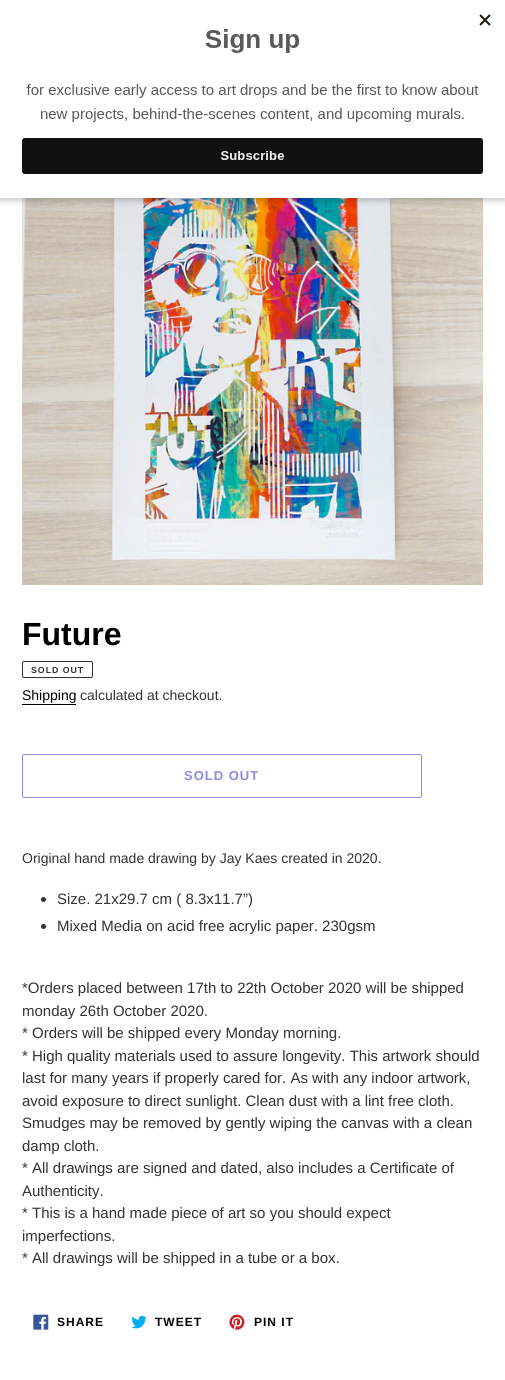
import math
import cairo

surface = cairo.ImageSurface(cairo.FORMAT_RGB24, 505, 1380)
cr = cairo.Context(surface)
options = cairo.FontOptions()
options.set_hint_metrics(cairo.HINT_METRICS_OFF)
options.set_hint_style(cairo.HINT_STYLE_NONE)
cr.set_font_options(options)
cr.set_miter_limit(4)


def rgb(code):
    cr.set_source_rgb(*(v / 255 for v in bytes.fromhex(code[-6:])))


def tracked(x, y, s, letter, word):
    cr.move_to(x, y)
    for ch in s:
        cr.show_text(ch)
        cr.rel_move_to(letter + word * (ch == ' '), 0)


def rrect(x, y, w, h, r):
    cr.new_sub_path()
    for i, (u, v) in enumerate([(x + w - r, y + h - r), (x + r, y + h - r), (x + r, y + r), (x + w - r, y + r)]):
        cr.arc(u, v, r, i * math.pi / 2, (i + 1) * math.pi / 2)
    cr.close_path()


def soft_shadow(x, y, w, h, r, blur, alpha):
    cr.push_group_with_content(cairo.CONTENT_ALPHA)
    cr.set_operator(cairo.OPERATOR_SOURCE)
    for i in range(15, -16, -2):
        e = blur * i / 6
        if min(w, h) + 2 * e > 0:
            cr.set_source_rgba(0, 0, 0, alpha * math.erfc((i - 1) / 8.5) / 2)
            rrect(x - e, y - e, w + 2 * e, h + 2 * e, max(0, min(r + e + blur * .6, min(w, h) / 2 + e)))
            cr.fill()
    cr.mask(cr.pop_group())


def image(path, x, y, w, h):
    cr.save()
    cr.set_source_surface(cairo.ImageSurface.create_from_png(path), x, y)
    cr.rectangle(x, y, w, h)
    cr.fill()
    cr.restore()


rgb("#ffffff")
cr.paint()
image("img/2.png", 22, 198, 461, 387)
rgb("#000000")
soft_shadow(0, 3, 505, 198, 0, 3, 0.2)
rgb("#ffffff")
cr.rectangle(0, 0, 505, 198)
cr.fill()
image("img/1.png", 22, 14, 469, 160)
rrect(22.5, 661.5, 70, 16, 1.5)
rgb("#333232")
cr.set_line_width(1)
cr.stroke()
rgb("#000000")
cr.rectangle(22, 704, 54, 1)
cr.fill()
rrect(22.5, 754.5, 399, 43, 1.5)
rgb("#8b8ce4")
cr.stroke()
rgb("#333232")
cr.arc(43.5, 899.5, 2.5, 0, 2 * math.pi)
cr.fill()
cr.arc(43.5, 926.5, 2.5, 0, 2 * math.pi)
cr.fill()
image("img/3.png", 33, 1314, 16, 16)
image("img/4.png", 131, 1315, 16, 14)
image("img/5.png", 229, 1314, 16, 16)
cr.select_font_face("Liberation Sans", cairo.FONT_SLANT_NORMAL, cairo.FONT_WEIGHT_BOLD)
cr.set_font_size(32)
rgb("#000000")
cr.move_to(22, 645)
cr.show_text("Future")
cr.set_font_size(8.75)
rgb("#333232")
tracked(31, 673, "SOLD OUT", 1, 0)
cr.select_font_face("Liberation Sans")
cr.set_font_size(14)
rgb("#000000")
cr.move_to(22, 700)
cr.show_text("Shipping")
rgb("#333232")
cr.move_to(80, 700)
cr.show_text("calculated at checkout.")
cr.select_font_face("Liberation Sans", cairo.FONT_SLANT_NORMAL, cairo.FONT_WEIGHT_BOLD)
cr.set_font_size(13)
rgb("#8b8ce4")
tracked(184, 780, "SOLD OUT", 1, 0)
cr.select_font_face("Liberation Sans")
cr.set_font_size(14)
rgb("#333232")
cr.move_to(22, 863)
cr.show_text("Original hand made drawing by Jay Kaes created in 2020.")
cr.set_font_size(15)
for x, y, s in [
    (57, 904, "Size. 21x29.7 cm ( 8.3x11.7”)"),
    (57, 931, "Mixed Media on acid free acrylic paper. 230gsm"),
    (22, 993, "*Orders placed between 17th to 22th October 2020 will be shipped"),
    (22, 1016, "monday 26th October 2020."),
    (22, 1038, "* Orders will be shipped every Monday morning."),
    (22, 1061, "* High quality materials used to assure longevity. This artwork should"),
    (22, 1083, "last for many years if properly cared for. As with any indoor artwork,"),
    (22, 1106, "avoid exposure to direct sunlight. Clean dust with a lint free cloth."),
    (22, 1128, "Smudges may be removed by gently wiping the canvas with a clean"),
    (22, 1151, "damp cloth."),
    (22, 1173, "* All drawings are signed and dated, also includes a Certificate of"),
    (22, 1196, "Authenticity."),
    (22, 1218, "* This is a hand made piece of art so you should expect"),
    (22, 1241, "imperfections."),
    (22, 1263, "* All drawings will be shipped in a tube or a box."),
]:
    cr.move_to(x, y)
    cr.show_text(s)
cr.select_font_face("Liberation Sans", cairo.FONT_SLANT_NORMAL, cairo.FONT_WEIGHT_BOLD)
cr.set_font_size(12)
rgb("#000000")
for x, y, s in [
    (57, 1326, "SHARE"),
    (155, 1326, "TWEET"),
    (254, 1326, "PIN IT"),
]:
    tracked(x, y, s, 1, 0)
surface.write_to_png("page.png")
